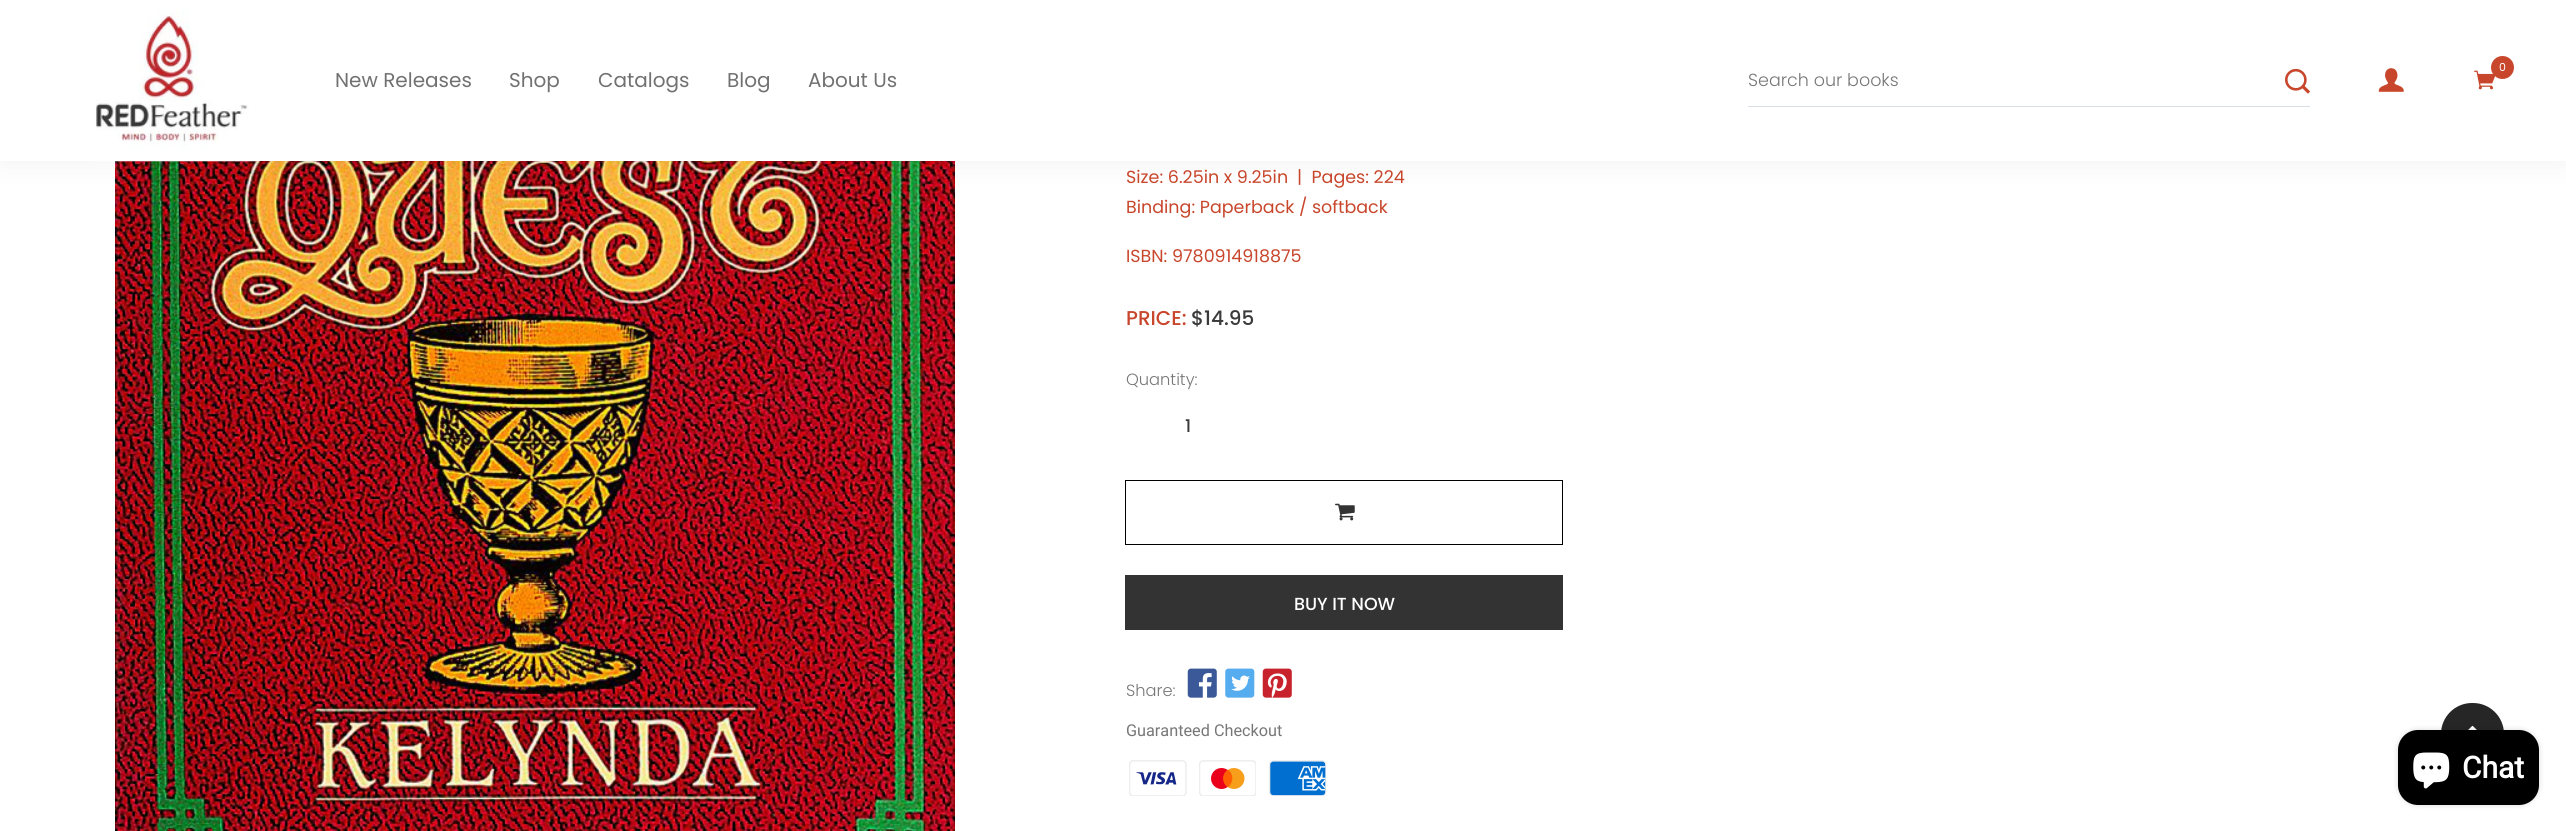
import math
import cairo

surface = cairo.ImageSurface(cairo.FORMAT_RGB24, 2566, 831)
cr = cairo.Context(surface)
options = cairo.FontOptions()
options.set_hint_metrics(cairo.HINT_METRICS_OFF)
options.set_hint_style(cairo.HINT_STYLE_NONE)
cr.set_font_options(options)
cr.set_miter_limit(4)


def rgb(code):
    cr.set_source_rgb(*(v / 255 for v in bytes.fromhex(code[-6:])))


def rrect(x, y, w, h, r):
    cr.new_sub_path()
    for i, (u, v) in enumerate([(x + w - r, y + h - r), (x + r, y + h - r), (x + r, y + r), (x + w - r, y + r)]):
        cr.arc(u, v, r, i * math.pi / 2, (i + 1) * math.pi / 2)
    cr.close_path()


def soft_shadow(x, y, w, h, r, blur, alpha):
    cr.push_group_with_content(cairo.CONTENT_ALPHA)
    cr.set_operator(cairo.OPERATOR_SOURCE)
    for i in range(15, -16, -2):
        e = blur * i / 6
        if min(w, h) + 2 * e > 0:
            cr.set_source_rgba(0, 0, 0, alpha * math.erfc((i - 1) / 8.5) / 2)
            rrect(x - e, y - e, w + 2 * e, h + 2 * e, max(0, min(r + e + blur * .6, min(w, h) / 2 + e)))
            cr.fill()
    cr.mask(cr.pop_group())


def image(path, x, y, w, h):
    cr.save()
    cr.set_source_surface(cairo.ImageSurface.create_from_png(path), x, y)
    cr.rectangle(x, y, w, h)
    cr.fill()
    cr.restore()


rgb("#ffffff")
cr.paint()
image("img/5.png", 115, 161, 840, 670)
rgb("#000000")
soft_shadow(0, 0, 2566, 161, 0, 15.5, 0.06)
rgb("#ffffff")
cr.rectangle(0, 0, 2566, 161)
cr.fill()
image("img/1.png", 94, 10, 163, 152)
image("img/2.png", 2474, 70, 22, 20)
rgb("#c8462b")
cr.arc(2502.5, 67.5, 11.5, 0, 2 * math.pi)
cr.fill()
rgb("#d9dfe6")
cr.rectangle(1748, 106, 562, 1)
cr.fill()
image("img/3.png", 2285, 68, 25, 26)
image("img/4.png", 2378, 68, 26, 24)
cr.rectangle(1125.5, 480.5, 437, 64)
rgb("#000000")
cr.set_line_width(1)
cr.stroke()
image("img/6.png", 1335, 503, 20, 18)
rgb("#333333")
cr.rectangle(1125, 575, 438, 55)
cr.fill()
image("img/7.png", 1187, 668, 30, 30)
image("img/8.png", 1225, 668, 30, 30)
image("img/9.png", 1262, 668, 30, 30)
image("img/10.png", 1129, 760, 58, 36)
image("img/11.png", 1199, 760, 57, 36)
image("img/12.png", 1269, 760, 57, 36)
rgb("#262626")
rrect(2441, 703, 63, 62, 31)
cr.fill()
image("img/13.png", 2468, 725, 9, 5)
rgb("#000000")
soft_shadow(2398, 730, 141, 75, 20, 3, 0.15)
rgb("#000000")
rrect(2398, 730, 141, 75, 20)
cr.fill()
image("img/14.png", 2413, 752, 37, 37)
cr.select_font_face("Poppins")
cr.set_font_size(20)
rgb("#717171")
for x, y, s in [
    (335, 87, "New Releases"),
    (509, 87, "Shop"),
    (598, 87, "Catalogs"),
    (727, 87, "Blog"),
    (808, 87, "About Us"),
]:
    cr.move_to(x, y)
    cr.show_text(s)
cr.set_font_size(11)
rgb("#ffffff")
cr.move_to(2499, 71)
cr.show_text("0")
cr.select_font_face("Poppins Light")
cr.set_font_size(17.5)
rgb("#777777")
cr.move_to(1748, 86)
cr.show_text("Search our books")
cr.select_font_face("Poppins")
rgb("#c8462b")
for x, y, s in [
    (1126, 183, "Size: 6.25in x 9.25in"),
    (1297, 183, "|  Pages: 224"),
    (1126, 213, "Binding: Paperback / softback"),
    (1126, 262, "ISBN: 9780914918875"),
]:
    cr.move_to(x, y)
    cr.show_text(s)
cr.select_font_face("Poppins Medium")
cr.set_font_size(20)
cr.move_to(1126, 325)
cr.show_text("PRICE:")
rgb("#3a3a3a")
cr.move_to(1191, 325)
cr.show_text("$14.95")
cr.select_font_face("Poppins Light")
cr.set_font_size(16.25)
rgb("#777777")
cr.move_to(1126, 385)
cr.show_text("Quantity:")
cr.select_font_face("Poppins Medium")
cr.set_font_size(17.5)
rgb("#3a3a3a")
cr.move_to(1185, 432)
cr.show_text("1")
rgb("#ffffff")
cr.move_to(1294, 610)
cr.show_text("BUY IT NOW")
cr.select_font_face("Poppins Light")
cr.set_font_size(16.25)
rgb("#777777")
cr.move_to(1126, 696)
cr.show_text("Share:")
cr.select_font_face("Roboto")
cr.move_to(1126, 736)
cr.show_text("Guaranteed Checkout")
cr.select_font_face("Roboto", cairo.FONT_SLANT_NORMAL, cairo.FONT_WEIGHT_BOLD)
cr.set_font_size(30)
rgb("#ffffff")
cr.move_to(2462, 778)
cr.show_text("Chat")
surface.write_to_png("page.png")
